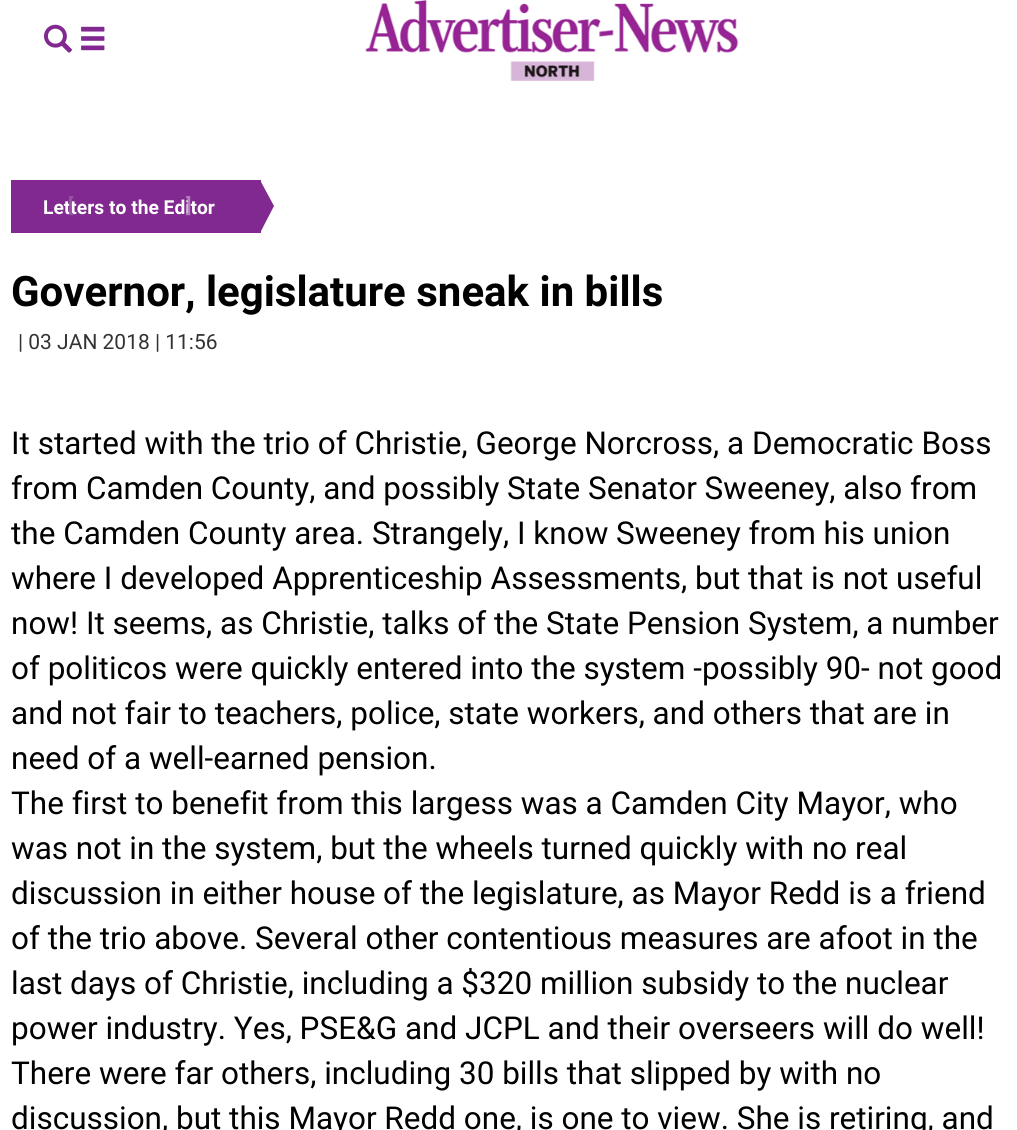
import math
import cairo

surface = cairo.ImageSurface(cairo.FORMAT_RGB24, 1017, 1130)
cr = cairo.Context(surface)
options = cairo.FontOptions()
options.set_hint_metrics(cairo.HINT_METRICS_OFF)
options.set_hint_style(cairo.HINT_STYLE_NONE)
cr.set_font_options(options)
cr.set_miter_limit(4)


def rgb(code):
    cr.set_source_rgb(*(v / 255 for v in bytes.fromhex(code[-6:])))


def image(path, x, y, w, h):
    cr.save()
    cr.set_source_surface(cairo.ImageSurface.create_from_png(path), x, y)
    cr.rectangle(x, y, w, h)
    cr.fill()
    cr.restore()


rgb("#ffffff")
cr.paint()
image("img/1.png", 44, 24, 61, 29)
image("img/2.png", 365, 0, 374, 81)
rgb("#812990")
cr.rectangle(11, 180, 250, 53)
cr.fill()
cr.new_path()
cr.move_to(260, 233)
cr.line_to(260, 180)
cr.line_to(274, 206)
cr.close_path()
cr.fill()
cr.select_font_face("Roboto", cairo.FONT_SLANT_NORMAL, cairo.FONT_WEIGHT_BOLD)
cr.set_font_size(19.25)
rgb("#ffffff")
cr.move_to(43, 214)
cr.show_text("Letters to the Editor")
rgb("#b47fbd")
cr.move_to(186, 212)
cr.show_text("]")
rgb("#9a54a6")
cr.move_to(68, 212)
cr.show_text("[")
cr.set_font_size(42)
rgb("#000000")
cr.move_to(11, 306)
cr.show_text("Governor, legislature sneak in bills")
cr.select_font_face("Roboto")
cr.set_font_size(21)
rgb("#333333")
cr.move_to(18, 349)
cr.show_text("| 03 JAN 2018 | 11:56")
cr.set_font_size(31.5)
rgb("#000000")
for x, y, s in [
    (11, 454, "It started with the trio of Christie, George Norcross, a Democratic Boss"),
    (11, 499, "from Camden County, and possibly State Senator Sweeney, also from"),
    (11, 544, "the Camden County area. Strangely, I know Sweeney from his union"),
    (11, 589, "where I developed Apprenticeship Assessments, but that is not useful"),
    (11, 634, "now! It seems, as Christie, talks of the State Pension System, a number"),
    (11, 679, "of politicos were quickly entered into the system -possibly 90- not good"),
    (11, 724, "and not fair to teachers, police, state workers, and others that are in"),
    (11, 769, "need of a well-earned pension."),
    (11, 814, "The first to benefit from this largess was a Camden City Mayor, who"),
    (11, 859, "was not in the system, but the wheels turned quickly with no real"),
    (11, 904, "discussion in either house of the legislature, as Mayor Redd is a friend"),
    (11, 949, "of the trio above. Several other contentious measures are afoot in the"),
    (11, 994, "last days of Christie, including a $320 million subsidy to the nuclear"),
    (11, 1039, "power industry. Yes, PSE&G and JCPL and their overseers will do well!"),
    (11, 1084, "There were far others, including 30 bills that slipped by with no"),
    (11, 1129, "discussion, but this Mayor Redd one, is one to view. She is retiring, and"),
]:
    cr.move_to(x, y)
    cr.show_text(s)
surface.write_to_png("page.png")
